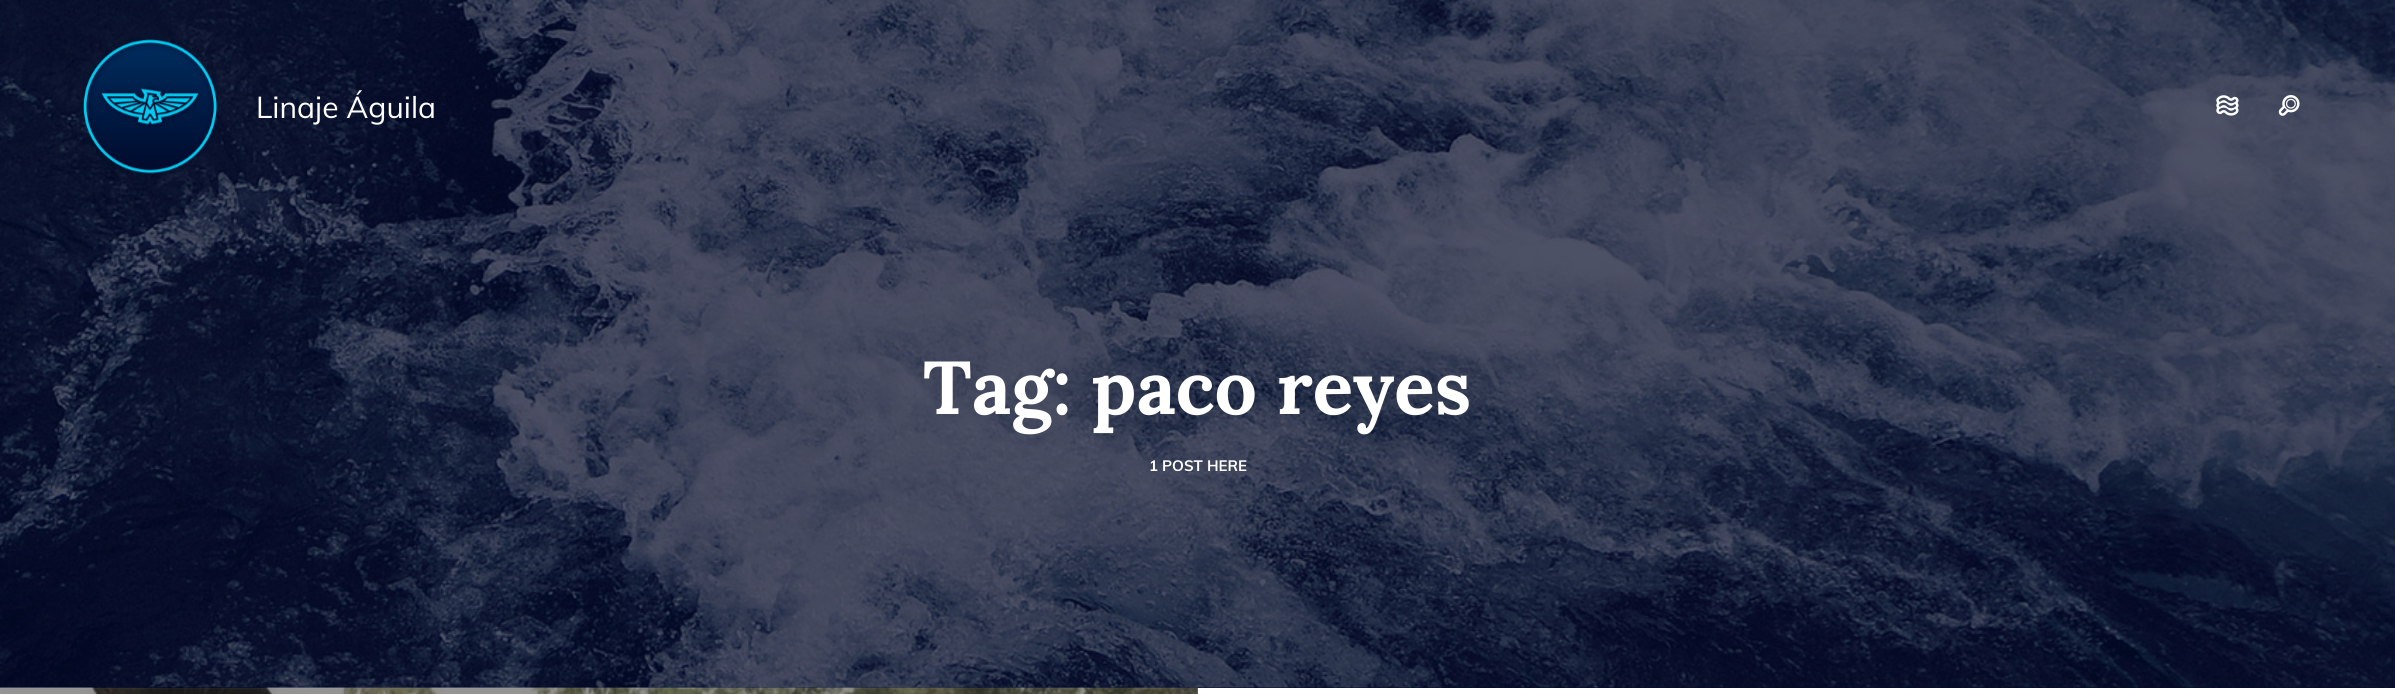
import math
import cairo

surface = cairo.ImageSurface(cairo.FORMAT_RGB24, 2395, 694)
cr = cairo.Context(surface)
options = cairo.FontOptions()
options.set_hint_metrics(cairo.HINT_METRICS_OFF)
options.set_hint_style(cairo.HINT_STYLE_NONE)
cr.set_font_options(options)
cr.set_miter_limit(4)


def rgb(code):
    cr.set_source_rgb(*(v / 255 for v in bytes.fromhex(code[-6:])))


def image(path, x, y, w, h):
    cr.save()
    cr.set_source_surface(cairo.ImageSurface.create_from_png(path), x, y)
    cr.rectangle(x, y, w, h)
    cr.fill()
    cr.restore()


rgb("#000c2e")
cr.paint()
image("img/4.png", 0, 0, 2395, 688)
image("img/1.png", 83, 39, 134, 135)
image("img/2.png", 2216, 95, 23, 21)
image("img/3.png", 2278, 95, 22, 21)
rgb("#ffffff")
cr.rectangle(1198, 688, 1197, 6)
cr.fill()
rgb("#00d3ff")
cr.rectangle(1197, 688, 1, 6)
cr.fill()
image("img/5.png", 0, 687, 1198, 7)
cr.set_source_rgba(0.169, 0.169, 0.169, 0.5)
cr.rectangle(0, 688, 1198, 6)
cr.fill()
cr.rectangle(0.5, 688.5, 1197, 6)
cr.set_source_rgba(1, 1, 1, 0.03)
cr.set_line_width(1)
cr.stroke()
cr.select_font_face("Muli")
cr.set_font_size(30)
rgb("#ffffff")
cr.move_to(256, 118)
cr.show_text("Linaje Águila")
cr.select_font_face("Lora", cairo.FONT_SLANT_NORMAL, cairo.FONT_WEIGHT_BOLD)
cr.set_font_size(75)
cr.move_to(923, 414)
cr.show_text("Tag: paco reyes")
cr.select_font_face("Muli", cairo.FONT_SLANT_NORMAL, cairo.FONT_WEIGHT_BOLD)
cr.set_font_size(15)
cr.move_to(1149, 471)
cr.show_text("1 POST HERE")
surface.write_to_png("page.png")
